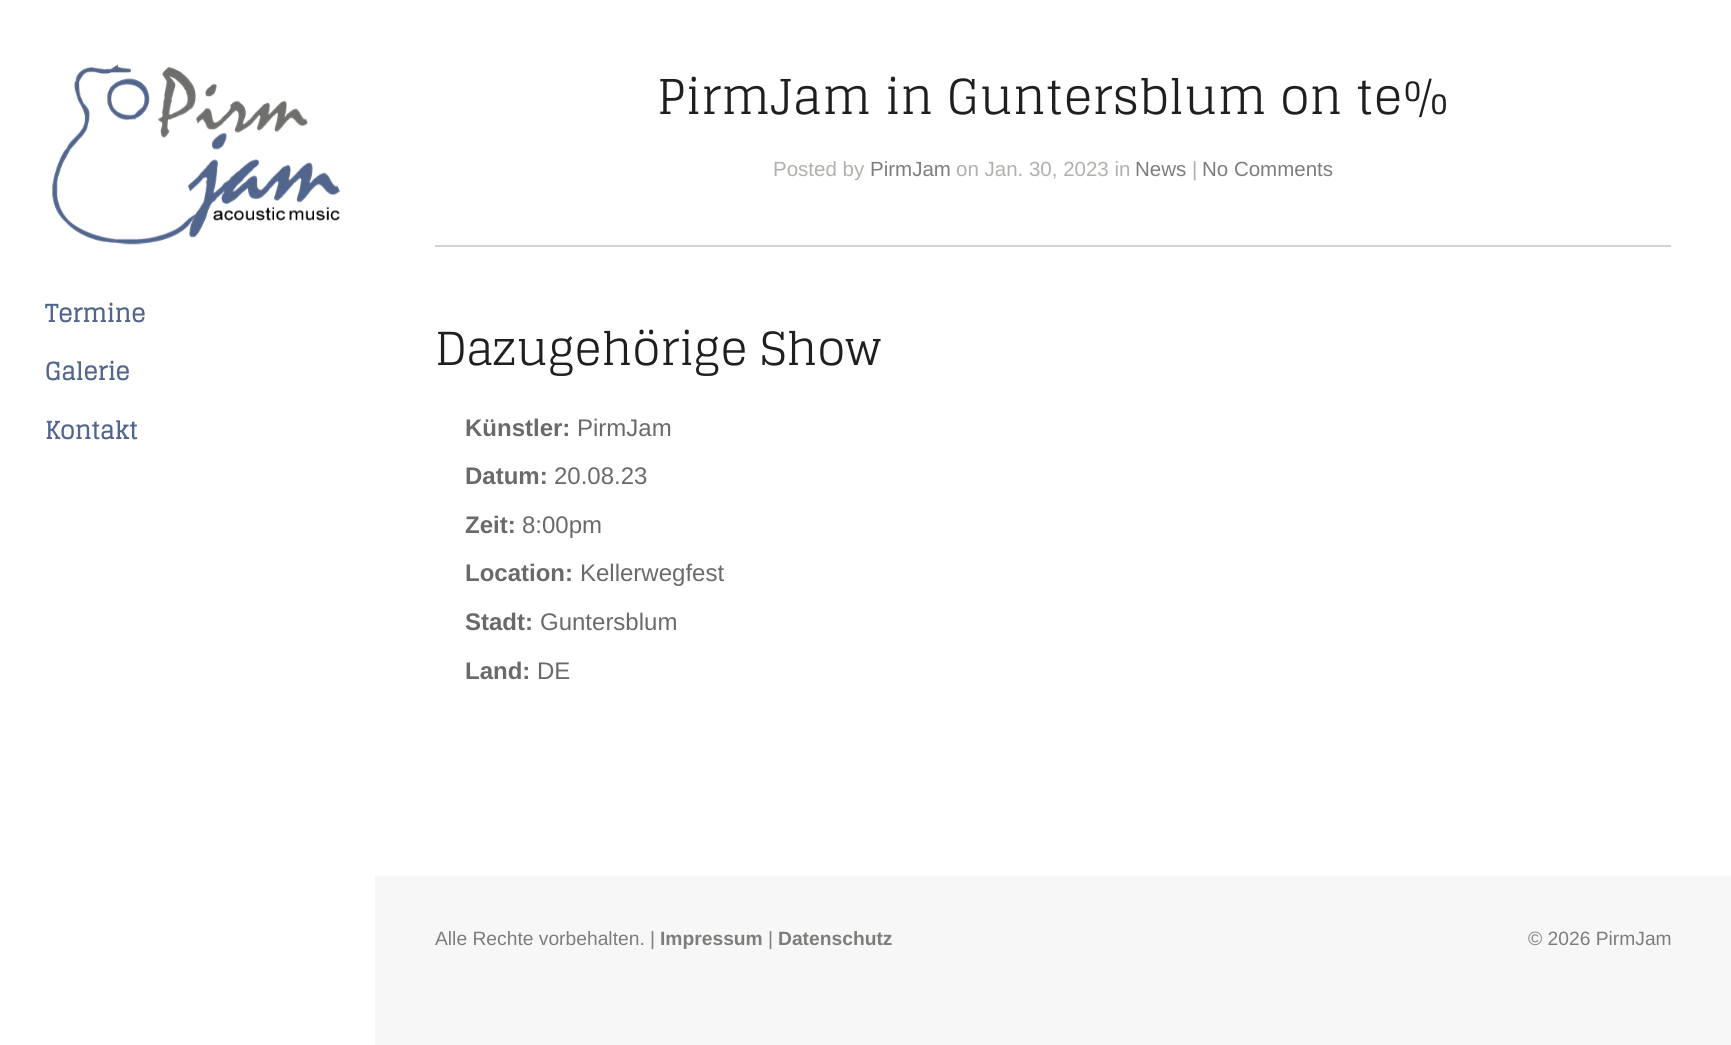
import math
import cairo

surface = cairo.ImageSurface(cairo.FORMAT_RGB24, 1731, 1045)
cr = cairo.Context(surface)
options = cairo.FontOptions()
options.set_hint_metrics(cairo.HINT_METRICS_OFF)
options.set_hint_style(cairo.HINT_STYLE_NONE)
cr.set_font_options(options)
cr.set_miter_limit(4)


def rgb(code):
    cr.set_source_rgb(*(v / 255 for v in bytes.fromhex(code[-6:])))


def image(path, x, y, w, h):
    cr.save()
    cr.set_source_surface(cairo.ImageSurface.create_from_png(path), x, y)
    cr.rectangle(x, y, w, h)
    cr.fill()
    cr.restore()


rgb("#f7f7f7")
cr.paint()
rgb("#ffffff")
cr.rectangle(0, 0, 375, 1045)
cr.fill()
image("img/1.png", 52, 64, 289, 181)
cr.rectangle(375, 0, 1356, 876)
cr.fill()
rgb("#d3d3d3")
cr.rectangle(435, 245, 1236, 2)
cr.fill()
cr.select_font_face("Glegoo", cairo.FONT_SLANT_NORMAL, cairo.FONT_WEIGHT_BOLD)
cr.set_font_size(24)
rgb("#51658d")
for x, y, s in [
    (45, 322, "Termine"),
    (45, 380, "Galerie"),
    (45, 439, "Kontakt"),
]:
    cr.move_to(x, y)
    cr.show_text(s)
cr.select_font_face("Glegoo")
cr.set_font_size(48)
rgb("#1f1f1f")
cr.move_to(657, 114)
cr.show_text("PirmJam in Guntersblum on te%")
cr.select_font_face("Liberation Sans")
cr.set_font_size(20.5)
rgb("#b0b0ad")
cr.move_to(773, 176)
cr.show_text("Posted by")
rgb("#7d7d7b")
cr.move_to(870, 176)
cr.show_text("PirmJam")
rgb("#b0b0ad")
cr.move_to(956, 176)
cr.show_text("on Jan. 30, 2023 in")
rgb("#7d7d7b")
cr.move_to(1135, 176)
cr.show_text("News")
rgb("#b0b0ad")
cr.move_to(1192, 176)
cr.show_text("|")
rgb("#7d7d7b")
cr.move_to(1202, 176)
cr.show_text("No Comments")
cr.select_font_face("Glegoo")
cr.set_font_size(45.5)
rgb("#1f1f1f")
cr.move_to(435, 365)
cr.show_text("Dazugehörige Show")
cr.select_font_face("Liberation Sans", cairo.FONT_SLANT_NORMAL, cairo.FONT_WEIGHT_BOLD)
cr.set_font_size(24)
rgb("#6a6a6a")
cr.move_to(465, 436)
cr.show_text("Künstler:")
cr.select_font_face("Liberation Sans")
cr.move_to(577, 436)
cr.show_text("PirmJam")
cr.select_font_face("Liberation Sans", cairo.FONT_SLANT_NORMAL, cairo.FONT_WEIGHT_BOLD)
cr.move_to(465, 484)
cr.show_text("Datum:")
cr.select_font_face("Liberation Sans")
cr.move_to(554, 484)
cr.show_text("20.08.23")
cr.select_font_face("Liberation Sans", cairo.FONT_SLANT_NORMAL, cairo.FONT_WEIGHT_BOLD)
cr.move_to(465, 533)
cr.show_text("Zeit:")
cr.select_font_face("Liberation Sans")
cr.move_to(522, 533)
cr.show_text("8:00pm")
cr.select_font_face("Liberation Sans", cairo.FONT_SLANT_NORMAL, cairo.FONT_WEIGHT_BOLD)
cr.move_to(465, 581)
cr.show_text("Location:")
cr.select_font_face("Liberation Sans")
cr.move_to(580, 581)
cr.show_text("Kellerwegfest")
cr.select_font_face("Liberation Sans", cairo.FONT_SLANT_NORMAL, cairo.FONT_WEIGHT_BOLD)
cr.move_to(465, 630)
cr.show_text("Stadt:")
cr.select_font_face("Liberation Sans")
cr.move_to(540, 630)
cr.show_text("Guntersblum")
cr.select_font_face("Liberation Sans", cairo.FONT_SLANT_NORMAL, cairo.FONT_WEIGHT_BOLD)
cr.move_to(465, 679)
cr.show_text("Land:")
cr.select_font_face("Liberation Sans")
cr.move_to(537, 679)
cr.show_text("DE")
cr.set_font_size(19.25)
rgb("#7d7d7b")
cr.move_to(435, 945)
cr.show_text("Alle Rechte vorbehalten. |")
cr.select_font_face("Liberation Sans", cairo.FONT_SLANT_NORMAL, cairo.FONT_WEIGHT_BOLD)
cr.move_to(660, 945)
cr.show_text("Impressum")
cr.select_font_face("Liberation Sans")
cr.move_to(768, 945)
cr.show_text("|")
cr.select_font_face("Liberation Sans", cairo.FONT_SLANT_NORMAL, cairo.FONT_WEIGHT_BOLD)
cr.move_to(778, 945)
cr.show_text("Datenschutz")
cr.select_font_face("Liberation Sans")
cr.move_to(1528, 945)
cr.show_text("© 2026 PirmJam")
surface.write_to_png("page.png")
